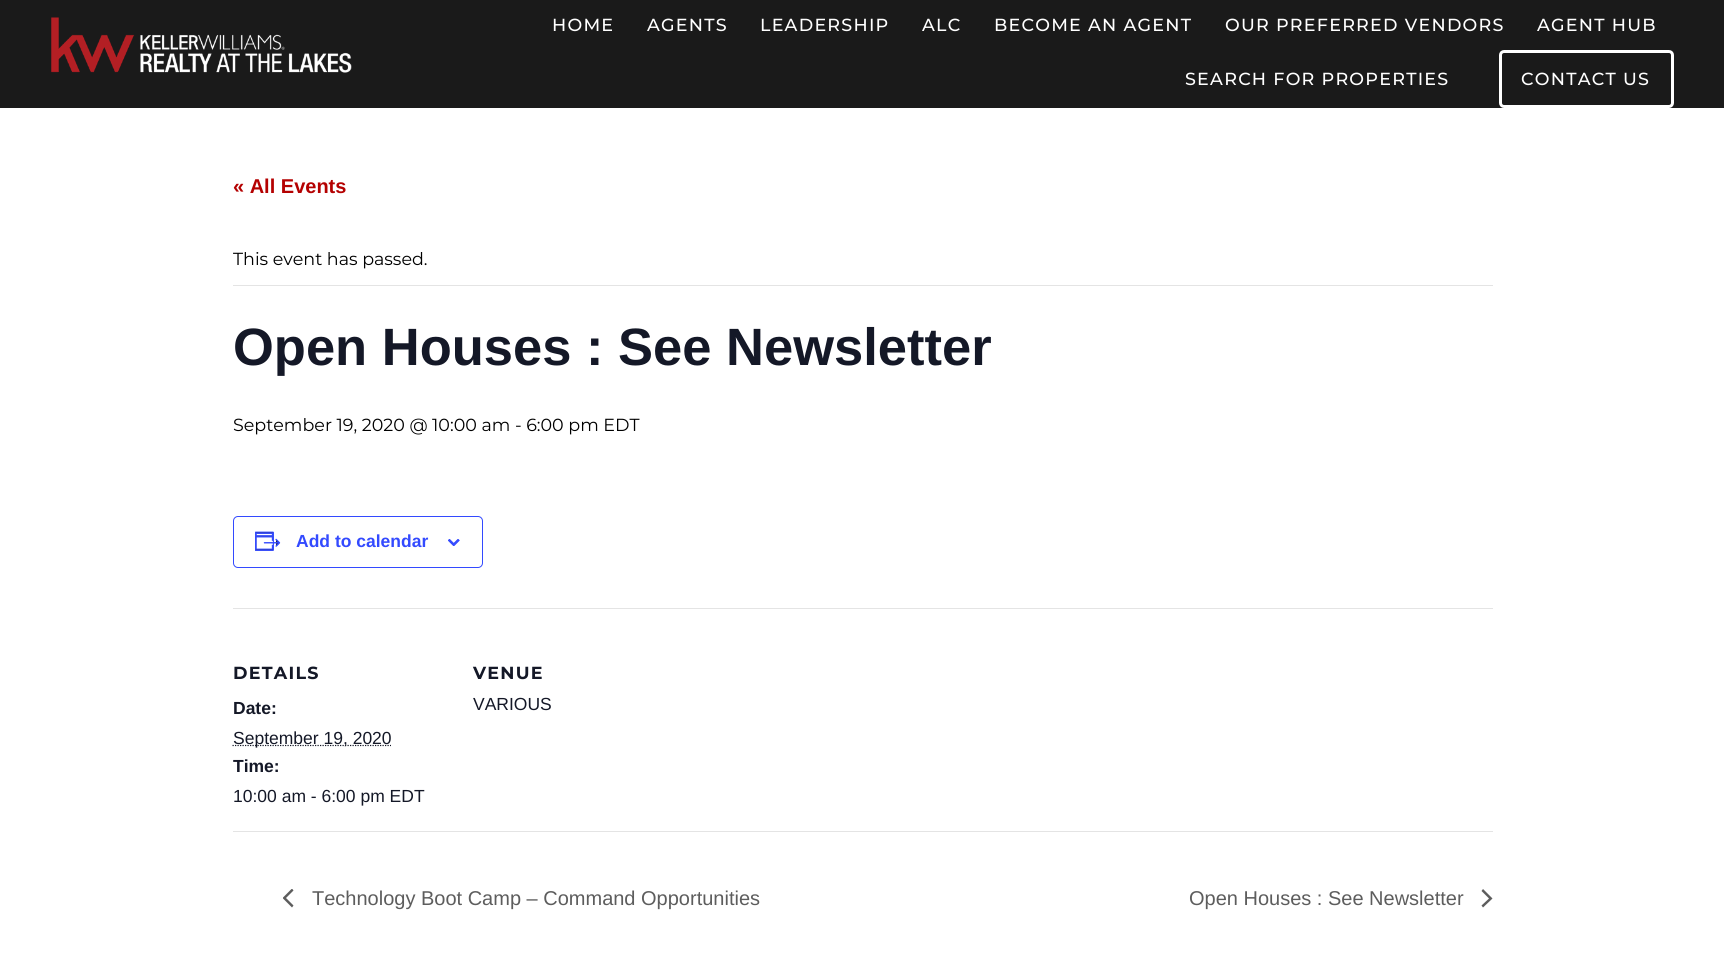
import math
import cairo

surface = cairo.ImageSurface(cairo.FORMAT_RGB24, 1724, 955)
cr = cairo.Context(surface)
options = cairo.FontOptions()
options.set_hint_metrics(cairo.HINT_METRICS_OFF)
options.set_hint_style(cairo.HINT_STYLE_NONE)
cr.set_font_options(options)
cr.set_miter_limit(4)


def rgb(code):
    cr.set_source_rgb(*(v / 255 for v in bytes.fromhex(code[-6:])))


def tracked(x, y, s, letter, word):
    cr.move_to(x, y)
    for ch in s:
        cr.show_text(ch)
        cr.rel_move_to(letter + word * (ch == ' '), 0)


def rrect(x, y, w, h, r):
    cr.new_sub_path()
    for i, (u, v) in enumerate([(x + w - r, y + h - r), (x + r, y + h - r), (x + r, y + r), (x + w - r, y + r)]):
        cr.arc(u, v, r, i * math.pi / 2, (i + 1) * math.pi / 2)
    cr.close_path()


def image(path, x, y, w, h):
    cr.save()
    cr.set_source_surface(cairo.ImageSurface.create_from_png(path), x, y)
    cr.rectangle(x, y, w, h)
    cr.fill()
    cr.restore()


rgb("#ffffff")
cr.paint()
rgb("#1a1a1a")
cr.rectangle(0, 0, 1724, 108)
cr.fill()
image("img/1.png", 51, 17, 301, 56)
rrect(1500.5, 51.5, 172, 55, 3.5)
rgb("#ffffff")
cr.set_line_width(3)
cr.stroke()
rgb("#e4e4e4")
cr.rectangle(233, 285, 1260, 1)
cr.fill()
rrect(233.5, 516.5, 249, 51, 4.5)
rgb("#334aff")
cr.set_line_width(1)
cr.stroke()
image("img/2.png", 255, 531, 26, 20)
image("img/3.png", 448, 539, 12, 7)
rgb("#e4e4e4")
cr.rectangle(233, 608, 1260, 1)
cr.fill()
cr.new_path()
cr.move_to(232.5, 745.5)
cr.line_to(391, 745.5)
rgb("#141827")
cr.set_line_width(1.2)
cr.set_dash([1.25, 1.25])
cr.stroke()
rgb("#e4e4e4")
cr.rectangle(233, 831, 1260, 1)
cr.fill()
cr.save()
cr.rectangle(283, 889, 11, 19)
cr.clip()
rgb("#5d5d5d")
cr.new_path()
cr.move_to(293.5, 905.5)
cr.line_to(292, 907.5)
cr.line_to(282.5, 898)
cr.line_to(292, 888.5)
cr.line_to(293.5, 890.5)
cr.line_to(286, 898)
cr.close_path()
cr.fill()
cr.restore()
rgb("#5d5d5d")
cr.new_path()
cr.move_to(1481.5, 891)
cr.line_to(1483, 889)
cr.line_to(1492.5, 898.5)
cr.line_to(1483, 907.5)
cr.line_to(1481.5, 905.5)
cr.line_to(1489, 898.5)
cr.close_path()
cr.fill()
cr.select_font_face("Montserrat Medium")
cr.set_font_size(17.5)
rgb("#ffffff")
for x, y, s in [
    (552, 31, "HOME"),
    (647, 31, "AGENTS"),
    (760, 31, "LEADERSHIP"),
    (922, 31, "ALC"),
    (994, 31, "BECOME AN AGENT"),
    (1225, 31, "OUR PREFERRED VENDORS"),
    (1537, 31, "AGENT HUB"),
    (1185, 85, "SEARCH FOR PROPERTIES"),
    (1521, 85, "CONTACT US"),
]:
    tracked(x, y, s, 1.25, 0)
cr.select_font_face("Liberation Sans", cairo.FONT_SLANT_NORMAL, cairo.FONT_WEIGHT_BOLD)
cr.set_font_size(20)
rgb("#b40101")
cr.move_to(233, 193)
cr.show_text("« All Events")
cr.select_font_face("Montserrat")
cr.set_font_size(17.5)
rgb("#000000")
cr.move_to(233, 265)
cr.show_text("This event has passed.")
cr.select_font_face("Liberation Sans", cairo.FONT_SLANT_NORMAL, cairo.FONT_WEIGHT_BOLD)
cr.set_font_size(52.5)
rgb("#141827")
cr.move_to(233, 365)
cr.show_text("Open Houses : See Newsletter")
cr.select_font_face("Montserrat")
cr.set_font_size(17.5)
rgb("#000000")
cr.move_to(233, 431)
cr.show_text("September 19, 2020 @ 10:00 am - 6:00 pm EDT")
cr.select_font_face("Liberation Sans", cairo.FONT_SLANT_NORMAL, cairo.FONT_WEIGHT_BOLD)
rgb("#334aff")
cr.move_to(296, 547)
cr.show_text("Add to calendar")
cr.select_font_face("Montserrat", cairo.FONT_SLANT_NORMAL, cairo.FONT_WEIGHT_BOLD)
rgb("#141827")
tracked(233, 679, "DETAILS", 1.25, 0)
cr.select_font_face("Liberation Sans", cairo.FONT_SLANT_NORMAL, cairo.FONT_WEIGHT_BOLD)
cr.move_to(233, 714)
cr.show_text("Date:")
cr.select_font_face("Liberation Sans")
cr.move_to(233, 744)
cr.show_text("September 19, 2020")
cr.select_font_face("Liberation Sans", cairo.FONT_SLANT_NORMAL, cairo.FONT_WEIGHT_BOLD)
cr.move_to(233, 772)
cr.show_text("Time:")
cr.select_font_face("Liberation Sans")
cr.move_to(233, 802)
cr.show_text("10:00 am - 6:00 pm EDT")
cr.select_font_face("Montserrat", cairo.FONT_SLANT_NORMAL, cairo.FONT_WEIGHT_BOLD)
tracked(473, 679, "VENUE", 1.25, 0)
cr.select_font_face("Liberation Sans")
cr.move_to(473, 710)
cr.show_text("VARIOUS")
cr.set_font_size(20)
rgb("#5d5d5d")
cr.move_to(312, 905)
cr.show_text("Technology Boot Camp – Command Opportunities")
cr.move_to(1189, 905)
cr.show_text("Open Houses : See Newsletter")
surface.write_to_png("page.png")
